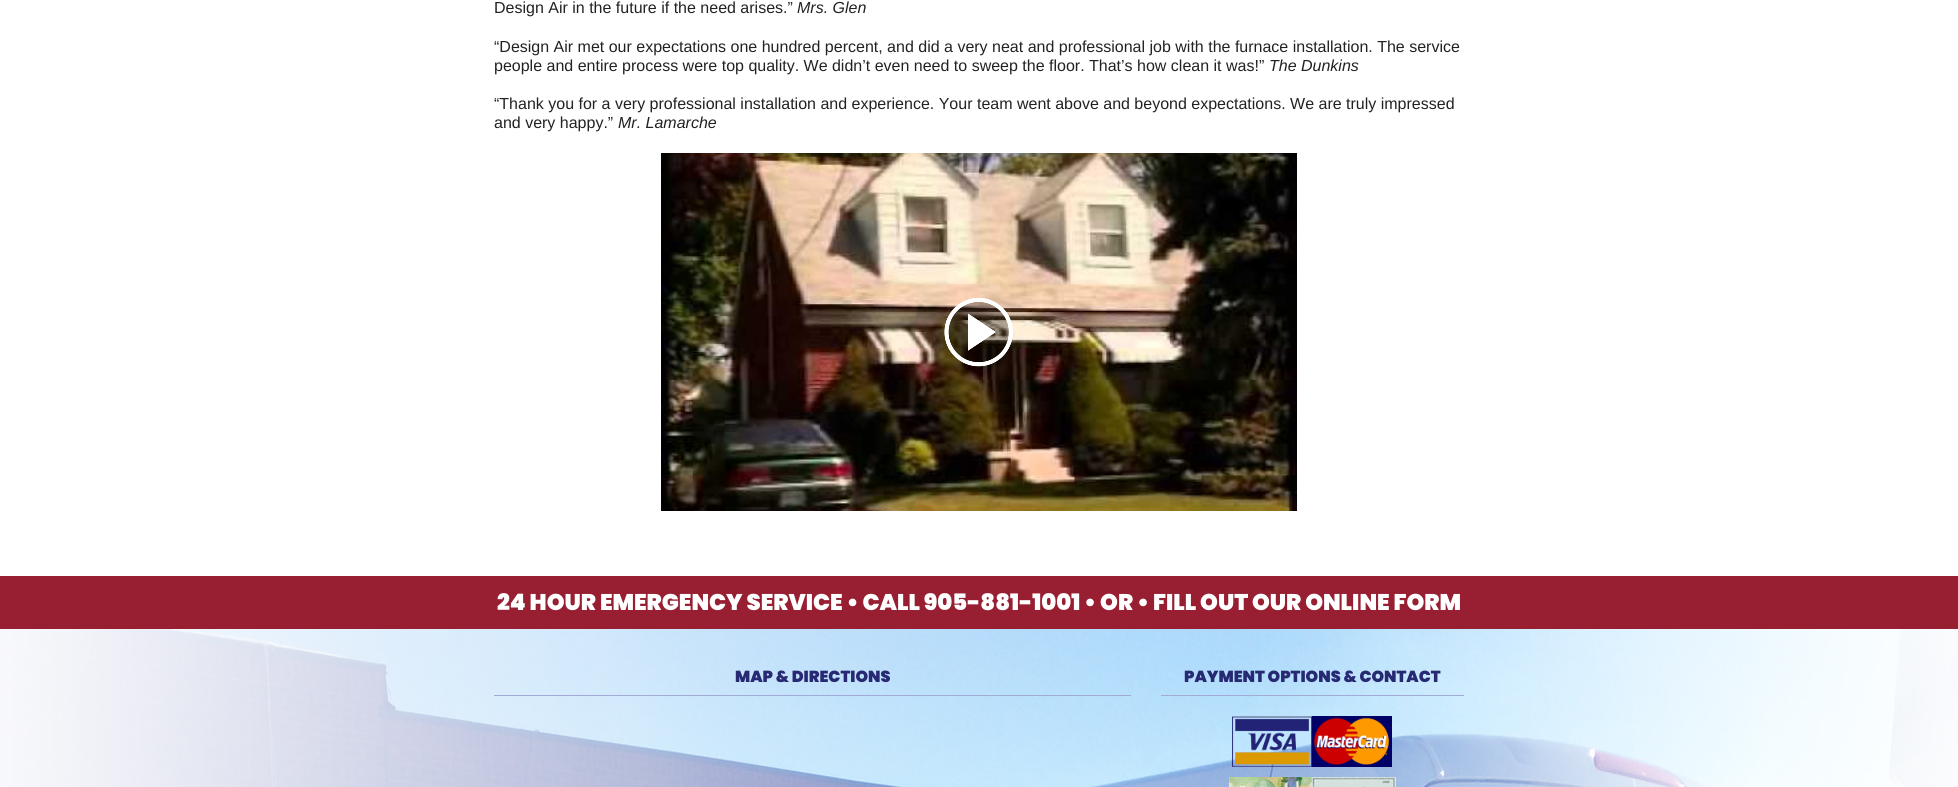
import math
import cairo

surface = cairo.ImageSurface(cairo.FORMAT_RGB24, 1958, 787)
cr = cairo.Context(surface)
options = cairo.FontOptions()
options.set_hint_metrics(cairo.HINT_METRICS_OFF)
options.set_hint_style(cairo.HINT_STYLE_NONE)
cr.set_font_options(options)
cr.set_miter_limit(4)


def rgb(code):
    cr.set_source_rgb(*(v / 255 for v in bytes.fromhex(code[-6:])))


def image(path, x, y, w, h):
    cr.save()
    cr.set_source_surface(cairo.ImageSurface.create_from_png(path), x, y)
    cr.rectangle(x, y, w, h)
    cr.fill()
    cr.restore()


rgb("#ffffff")
cr.paint()
image("img/1.png", 661, 153, 636, 358)
image("img/2.png", 944, 298, 69, 69)
rgb("#981e32")
cr.rectangle(0, 576, 1958, 53)
cr.fill()
image("img/3.png", 0, 629, 1958, 158)
rgb("#a1abd6")
cr.rectangle(494, 695, 637, 1)
cr.fill()
cr.rectangle(1161, 695, 303, 1)
cr.fill()
image("img/4.png", 1232, 716, 160, 51)
image("img/5.png", 1229, 777, 83, 10)
image("img/6.png", 1312, 777, 84, 10)
cr.select_font_face("Liberation Sans")
cr.set_font_size(16)
rgb("#222222")
cr.move_to(494, 13)
cr.show_text("Design Air in the future if the need arises.”")
cr.select_font_face("Liberation Sans", cairo.FONT_SLANT_ITALIC)
cr.move_to(797, 13)
cr.show_text("Mrs. Glen")
cr.select_font_face("Liberation Sans")
cr.move_to(494, 52)
cr.show_text("“Design Air met our expectations one hundred percent, and did a very neat and professional job with the furnace installation. The service")
cr.move_to(494, 71)
cr.show_text("people and entire process were top quality. We didn’t even need to sweep the floor. That’s how clean it was!”")
cr.select_font_face("Liberation Sans", cairo.FONT_SLANT_ITALIC)
cr.move_to(1269, 71)
cr.show_text("The Dunkins")
cr.select_font_face("Liberation Sans")
cr.move_to(494, 109)
cr.show_text("“Thank you for a very professional installation and experience. Your team went above and beyond expectations. We are truly impressed")
cr.move_to(494, 128)
cr.show_text("and very happy.”")
cr.select_font_face("Liberation Sans", cairo.FONT_SLANT_ITALIC)
cr.move_to(618, 128)
cr.show_text("Mr. Lamarche")
cr.select_font_face("Poppins Black")
cr.set_font_size(22.65)
rgb("#ffffff")
cr.move_to(497, 610)
cr.show_text("24 HOUR EMERGENCY SERVICE • CALL 905-881-1001 • OR • FILL OUT OUR ONLINE FORM")
cr.set_font_size(16)
rgb("#272972")
cr.move_to(735, 682)
cr.show_text("MAP & DIRECTIONS")
cr.move_to(1184, 682)
cr.show_text("PAYMENT OPTIONS & CONTACT")
surface.write_to_png("page.png")
